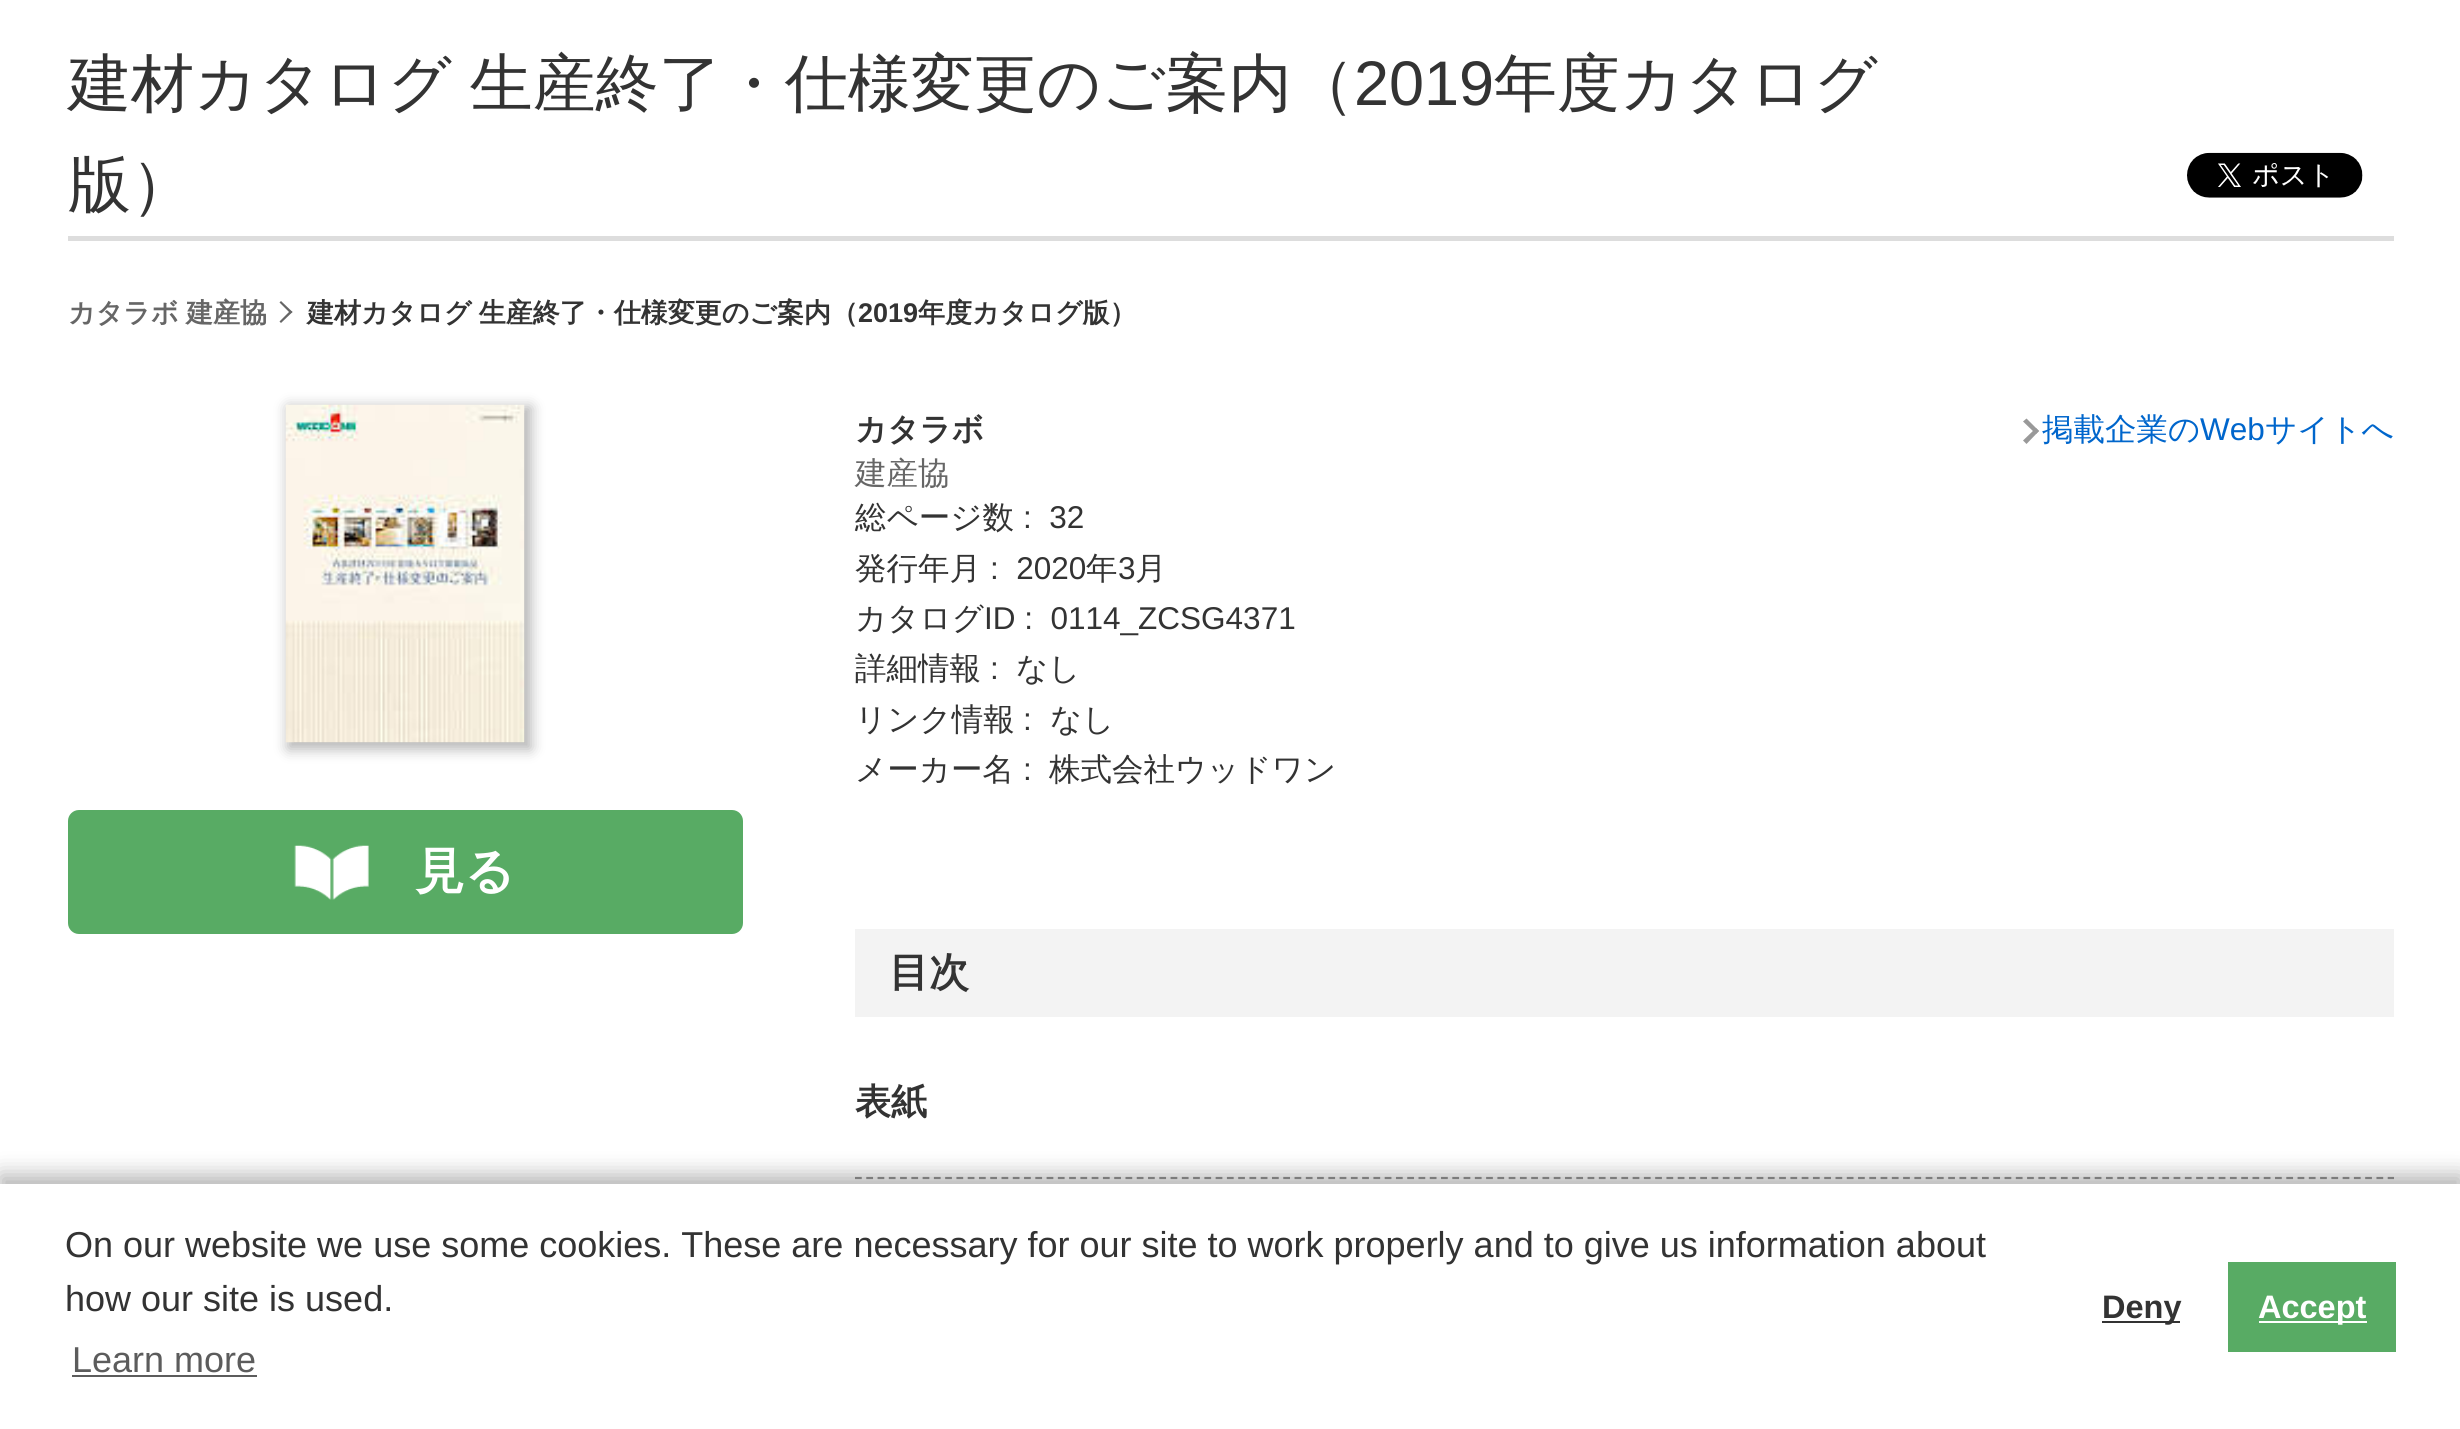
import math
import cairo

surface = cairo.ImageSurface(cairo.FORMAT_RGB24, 2460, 1429)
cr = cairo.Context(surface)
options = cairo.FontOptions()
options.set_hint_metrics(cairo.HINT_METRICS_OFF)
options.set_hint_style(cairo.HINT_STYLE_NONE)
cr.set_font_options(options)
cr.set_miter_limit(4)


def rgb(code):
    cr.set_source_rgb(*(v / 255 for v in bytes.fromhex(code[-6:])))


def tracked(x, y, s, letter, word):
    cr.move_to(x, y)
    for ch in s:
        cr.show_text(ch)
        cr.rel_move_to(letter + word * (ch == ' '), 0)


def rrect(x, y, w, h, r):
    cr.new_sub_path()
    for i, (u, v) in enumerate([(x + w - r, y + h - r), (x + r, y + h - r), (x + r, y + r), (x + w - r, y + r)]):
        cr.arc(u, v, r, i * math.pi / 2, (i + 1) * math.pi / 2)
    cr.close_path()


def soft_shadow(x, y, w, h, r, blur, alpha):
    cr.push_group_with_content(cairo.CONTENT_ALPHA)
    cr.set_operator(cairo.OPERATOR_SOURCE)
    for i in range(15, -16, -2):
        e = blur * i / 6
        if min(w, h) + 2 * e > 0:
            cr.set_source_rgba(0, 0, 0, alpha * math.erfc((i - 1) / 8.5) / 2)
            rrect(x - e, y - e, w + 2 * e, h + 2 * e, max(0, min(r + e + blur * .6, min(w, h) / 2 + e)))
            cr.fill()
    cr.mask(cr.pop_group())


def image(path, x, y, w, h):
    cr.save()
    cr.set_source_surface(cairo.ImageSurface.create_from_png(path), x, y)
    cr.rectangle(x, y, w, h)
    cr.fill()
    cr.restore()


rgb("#ffffff")
cr.paint()
rgb("#dddddd")
cr.rectangle(68, 236, 2326, 5)
cr.fill()
image("img/1.png", 2187, 152, 176, 46)
rgb("#666666")
cr.new_path()
cr.move_to(281, 301)
cr.line_to(292.5, 312)
cr.line_to(290.5, 313.5)
cr.line_to(279.5, 302.5)
cr.close_path()
cr.fill()
cr.new_path()
cr.move_to(290.5, 310.5)
cr.line_to(292.5, 312)
cr.line_to(281, 323)
cr.line_to(279.5, 321.5)
cr.close_path()
cr.fill()
rgb("#000000")
soft_shadow(288, 407, 243, 342, 0, 7, 0.3)
image("img/2.png", 285, 404, 240, 339)
rgb("#58ab64")
rrect(68, 810, 675, 124, 11)
cr.fill()
image("img/3.png", 294, 845, 75, 55)
rgb("#999999")
cr.new_path()
cr.move_to(2026.5, 418.5)
cr.line_to(2039, 431)
cr.line_to(2036, 434)
cr.line_to(2023, 421.5)
cr.close_path()
cr.fill()
cr.new_path()
cr.move_to(2036, 428)
cr.line_to(2039, 431)
cr.line_to(2026.5, 444)
cr.line_to(2023, 440.5)
cr.close_path()
cr.fill()
rgb("#f3f3f3")
cr.rectangle(855, 929, 1539, 88)
cr.fill()
cr.new_path()
cr.move_to(855, 1178)
cr.line_to(2394, 1178)
rgb("#999999")
cr.set_line_width(2.2)
cr.set_dash([6.75, 4.52])
cr.stroke()
rgb("#000000")
soft_shadow(0, 1175, 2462, 247, 0, 11, 0.3)
for x, y, w, h, color in [
    (0, 1184, 2460, 245, "#ffffff"),
    (72, 1375, 185, 2, "#5c5c5c"),
    (2102, 1321, 78, 2, "#333333"),
    (2228, 1262, 168, 90, "#58ab64"),
    (2259, 1321, 108, 2, "#ffffff"),
]:
    rgb(color)
    cr.rectangle(x, y, w, h)
    cr.fill()
cr.select_font_face("WenQuanYi Zen Hei Medium")
cr.set_font_size(63)
rgb("#333333")
tracked(68, 105, "建材カタログ 生産終了・仕様変更のご案内（", 0, -1)
cr.select_font_face("Liberation Sans")
cr.move_to(1354, 105)
cr.show_text("2019")
cr.select_font_face("WenQuanYi Zen Hei Medium")
cr.move_to(1494, 105)
cr.show_text("年度カタログ")
cr.move_to(68, 206)
cr.show_text("版）")
cr.select_font_face("WenQuanYi Zen Hei", cairo.FONT_SLANT_NORMAL, cairo.FONT_WEIGHT_BOLD)
cr.set_font_size(27)
rgb("#666666")
cr.move_to(68, 322)
cr.show_text("カタラボ")
cr.move_to(186, 322)
cr.show_text("建産協")
rgb("#333333")
tracked(307, 322, "建材カタログ 生産終了・仕様変更のご案内（", 0, -1)
cr.select_font_face("Liberation Sans", cairo.FONT_SLANT_NORMAL, cairo.FONT_WEIGHT_BOLD)
cr.move_to(858, 322)
cr.show_text("2019")
cr.select_font_face("WenQuanYi Zen Hei", cairo.FONT_SLANT_NORMAL, cairo.FONT_WEIGHT_BOLD)
cr.move_to(918, 322)
cr.show_text("年度カタログ版）")
cr.set_font_size(49.5)
rgb("#ffffff")
cr.move_to(415, 888)
cr.show_text("見る")
cr.set_font_size(31.5)
rgb("#333333")
cr.move_to(855, 440)
cr.show_text("カタラボ")
cr.select_font_face("WenQuanYi Zen Hei Medium")
rgb("#666666")
cr.move_to(855, 484)
cr.show_text("建産協")
rgb("#333333")
cr.move_to(855, 528)
cr.show_text("総ページ数")
cr.select_font_face("Liberation Sans")
cr.move_to(1023, 528)
cr.show_text(":  32")
cr.select_font_face("WenQuanYi Zen Hei Medium")
cr.move_to(855, 579)
cr.show_text("発行年月")
cr.select_font_face("Liberation Sans")
cr.move_to(990, 579)
cr.show_text(":  2020")
cr.select_font_face("WenQuanYi Zen Hei Medium")
cr.move_to(1086, 579)
cr.show_text("年")
cr.select_font_face("Liberation Sans")
cr.move_to(1118, 579)
cr.show_text("3")
cr.select_font_face("WenQuanYi Zen Hei Medium")
cr.move_to(1135, 579)
cr.show_text("月")
cr.move_to(855, 629)
cr.show_text("カタログ")
cr.select_font_face("Liberation Sans")
cr.move_to(984, 629)
cr.show_text("ID :  0114_ZCSG4371")
cr.select_font_face("WenQuanYi Zen Hei Medium")
cr.move_to(855, 679)
cr.show_text("詳細情報")
cr.select_font_face("Liberation Sans")
cr.move_to(990, 679)
cr.show_text(":")
cr.select_font_face("WenQuanYi Zen Hei Medium")
cr.move_to(1016, 679)
cr.show_text("なし")
cr.move_to(855, 730)
cr.show_text("リンク情報")
cr.select_font_face("Liberation Sans")
cr.move_to(1023, 730)
cr.show_text(":")
cr.select_font_face("WenQuanYi Zen Hei Medium")
cr.move_to(1050, 730)
cr.show_text("なし")
cr.move_to(855, 780)
cr.show_text("メーカー名")
cr.select_font_face("Liberation Sans")
cr.move_to(1023, 780)
cr.show_text(":")
cr.select_font_face("WenQuanYi Zen Hei Medium")
cr.move_to(1049, 780)
cr.show_text("株式会社ウッドワン")
rgb("#0066cc")
cr.move_to(2042, 440)
cr.show_text("掲載企業の")
cr.select_font_face("Liberation Sans")
cr.move_to(2200, 440)
cr.show_text("Web")
cr.select_font_face("WenQuanYi Zen Hei Medium")
cr.move_to(2265, 440)
cr.show_text("サイトへ")
cr.select_font_face("WenQuanYi Zen Hei", cairo.FONT_SLANT_NORMAL, cairo.FONT_WEIGHT_BOLD)
cr.set_font_size(40)
rgb("#333333")
cr.move_to(889, 986)
cr.show_text("目次")
cr.set_font_size(36)
cr.move_to(855, 1114)
cr.show_text("表紙")
cr.select_font_face("Liberation Sans")
cr.move_to(65, 1257)
cr.show_text("On our website we use some cookies. These are necessary for our site to work properly and to give us information about")
cr.move_to(65, 1311)
cr.show_text("how our site is used.")
rgb("#5c5c5c")
cr.move_to(72, 1372)
cr.show_text("Learn more")
cr.select_font_face("Liberation Sans", cairo.FONT_SLANT_NORMAL, cairo.FONT_WEIGHT_BOLD)
cr.set_font_size(32.5)
rgb("#333333")
cr.move_to(2102, 1318)
cr.show_text("Deny")
rgb("#ffffff")
cr.move_to(2258, 1318)
cr.show_text("Accept")
surface.write_to_png("page.png")
